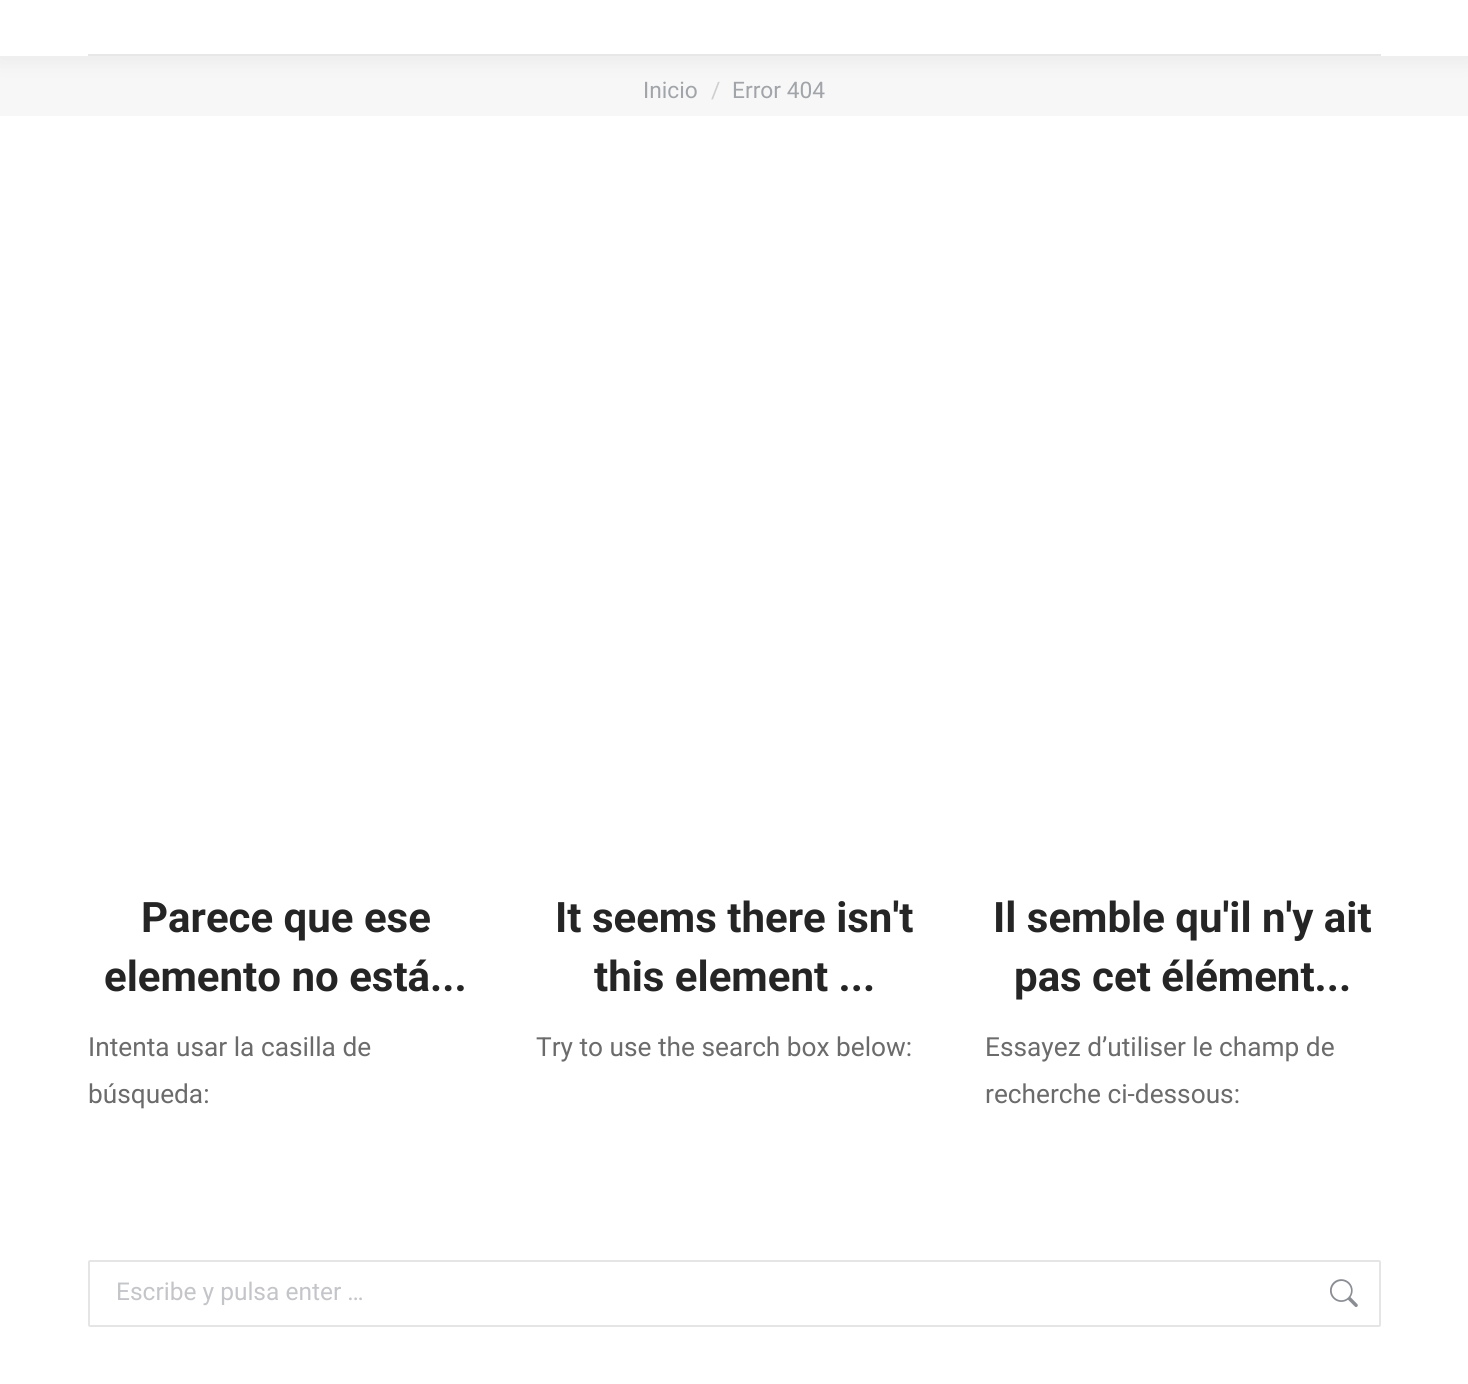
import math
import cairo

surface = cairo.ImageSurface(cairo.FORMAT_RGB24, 1468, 1384)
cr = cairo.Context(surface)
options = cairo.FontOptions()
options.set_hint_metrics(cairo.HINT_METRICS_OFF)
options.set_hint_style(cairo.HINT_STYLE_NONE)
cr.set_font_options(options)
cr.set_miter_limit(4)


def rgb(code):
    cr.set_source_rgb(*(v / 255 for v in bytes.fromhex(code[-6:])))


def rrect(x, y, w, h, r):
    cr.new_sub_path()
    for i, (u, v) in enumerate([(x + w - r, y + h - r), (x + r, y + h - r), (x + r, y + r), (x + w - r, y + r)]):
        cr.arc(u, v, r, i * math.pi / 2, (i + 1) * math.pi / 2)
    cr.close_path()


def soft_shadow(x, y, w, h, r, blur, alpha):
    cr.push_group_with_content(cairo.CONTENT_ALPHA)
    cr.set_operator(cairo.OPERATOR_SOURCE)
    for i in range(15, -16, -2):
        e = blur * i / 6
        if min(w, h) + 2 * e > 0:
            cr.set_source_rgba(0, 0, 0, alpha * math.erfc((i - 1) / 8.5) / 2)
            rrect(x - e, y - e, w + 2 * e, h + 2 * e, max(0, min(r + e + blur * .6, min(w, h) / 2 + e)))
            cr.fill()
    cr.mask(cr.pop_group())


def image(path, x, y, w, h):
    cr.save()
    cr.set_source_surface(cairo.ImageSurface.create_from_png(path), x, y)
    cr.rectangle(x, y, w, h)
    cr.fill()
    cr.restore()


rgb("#ffffff")
cr.paint()
rgb("#f7f7f7")
cr.rectangle(0, 56, 1468, 60)
cr.fill()
rgb("#000000")
soft_shadow(-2, -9, 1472, 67, 0, 13, 0.07)
rgb("#ffffff")
cr.rectangle(0, 0, 1468, 56)
cr.fill()
rgb("#e7e7e7")
cr.rectangle(88, 54, 1293, 2)
cr.fill()
rrect(89, 1261, 1291, 65, 1)
rgb("#e5e5e5")
cr.stroke()
image("img/1.png", 1330, 1279, 28, 28)
cr.select_font_face("Roboto")
cr.set_font_size(22.75)
rgb("#a1a4a8")
cr.move_to(643, 98)
cr.show_text("Inicio")
rgb("#ccced0")
cr.move_to(711, 98)
cr.show_text("/")
rgb("#a1a4a8")
cr.move_to(732, 98)
cr.show_text("Error 404")
cr.select_font_face("Roboto", cairo.FONT_SLANT_NORMAL, cairo.FONT_WEIGHT_BOLD)
cr.set_font_size(42)
rgb("#252525")
cr.move_to(141, 932)
cr.show_text("Parece que ese")
cr.move_to(104, 991)
cr.show_text("elemento no está...")
cr.select_font_face("Roboto")
cr.set_font_size(26.25)
rgb("#6b6b6b")
cr.move_to(88, 1056)
cr.show_text("Intenta usar la casilla de")
cr.move_to(88, 1103)
cr.show_text("búsqueda:")
cr.select_font_face("Roboto", cairo.FONT_SLANT_NORMAL, cairo.FONT_WEIGHT_BOLD)
cr.set_font_size(42)
rgb("#252525")
cr.move_to(555, 932)
cr.show_text("It seems there isn't")
cr.move_to(594, 991)
cr.show_text("this element ...")
cr.select_font_face("Roboto")
cr.set_font_size(26.25)
rgb("#6b6b6b")
cr.move_to(536, 1056)
cr.show_text("Try to use the search box below:")
cr.select_font_face("Roboto", cairo.FONT_SLANT_NORMAL, cairo.FONT_WEIGHT_BOLD)
cr.set_font_size(42)
rgb("#252525")
cr.move_to(993, 932)
cr.show_text("Il semble qu'il n'y ait")
cr.move_to(1014, 991)
cr.show_text("pas cet élément...")
cr.select_font_face("Roboto")
cr.set_font_size(26.25)
rgb("#6b6b6b")
cr.move_to(985, 1056)
cr.show_text("Essayez d’utiliser le champ de")
cr.move_to(985, 1103)
cr.show_text("recherche ci-dessous:")
cr.set_font_size(24.5)
rgb("#c4c5c9")
cr.move_to(116, 1300)
cr.show_text("Escribe y pulsa enter …")
surface.write_to_png("page.png")
